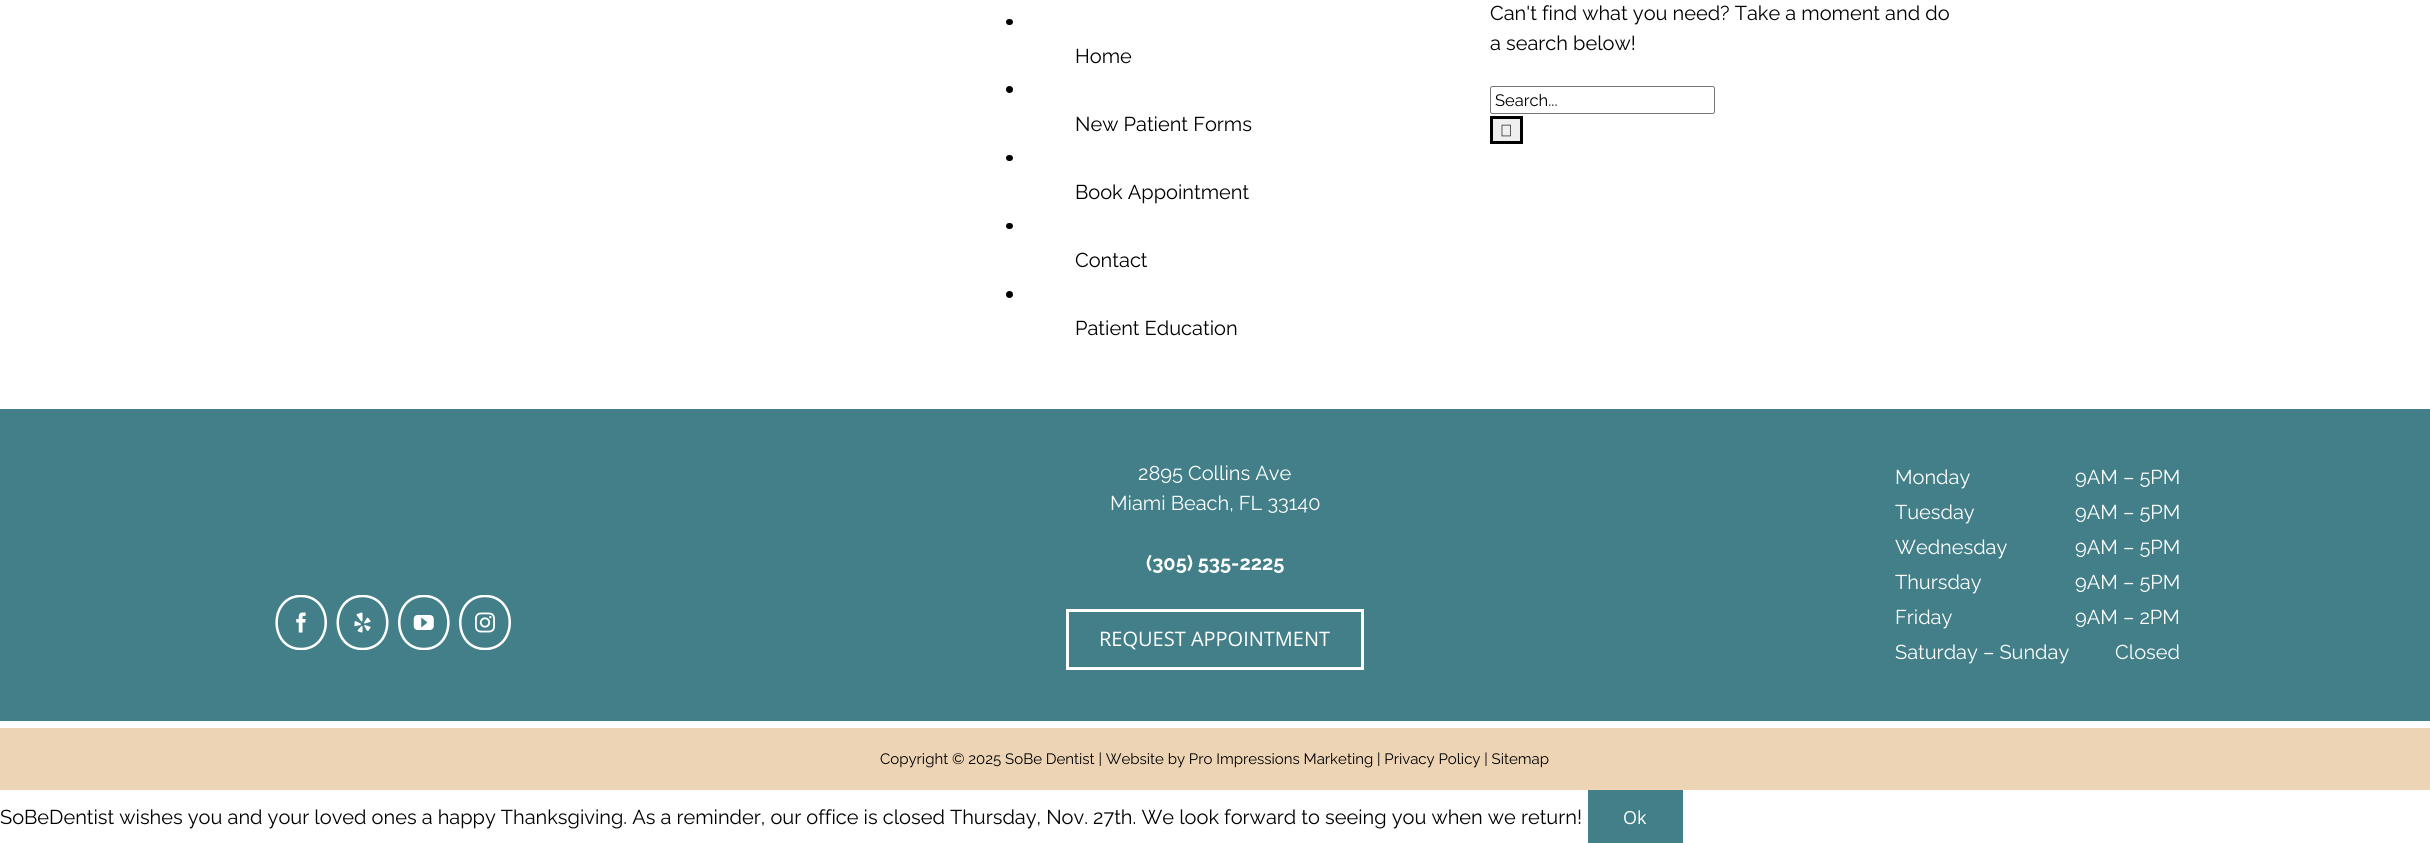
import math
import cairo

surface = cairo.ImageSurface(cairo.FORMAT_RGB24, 2430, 843)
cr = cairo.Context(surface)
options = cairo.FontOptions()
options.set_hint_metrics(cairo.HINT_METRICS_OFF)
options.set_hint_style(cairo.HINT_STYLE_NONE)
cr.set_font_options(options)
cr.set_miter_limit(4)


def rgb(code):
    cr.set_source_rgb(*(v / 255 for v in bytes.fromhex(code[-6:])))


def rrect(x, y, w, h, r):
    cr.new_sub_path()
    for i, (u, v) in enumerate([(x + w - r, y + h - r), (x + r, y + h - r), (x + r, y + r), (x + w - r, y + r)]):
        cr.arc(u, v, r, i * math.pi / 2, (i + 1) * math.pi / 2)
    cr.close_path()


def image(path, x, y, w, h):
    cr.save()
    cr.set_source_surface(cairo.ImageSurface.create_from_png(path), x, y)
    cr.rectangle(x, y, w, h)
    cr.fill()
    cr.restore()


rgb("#ffffff")
cr.paint()
rgb("#000000")
rrect(1006, 19, 7, 6, 3)
cr.fill()
cr.arc(1009.5, 89.5, 3.5, 0, 2 * math.pi)
cr.fill()
rrect(1006, 155, 7, 6, 3)
cr.fill()
rrect(1006, 223, 7, 6, 3)
cr.fill()
cr.arc(1009.5, 294.5, 3.5, 0, 2 * math.pi)
cr.fill()
rrect(1490.5, 86.5, 224, 27, 2)
rgb("#767676")
cr.set_line_width(1)
cr.stroke()
rgb("#efefef")
cr.rectangle(1491.5, 117.5, 30, 25)
cr.fill_preserve()
rgb("#000000")
cr.set_line_width(3)
cr.stroke()
image("img/1.png", 1501, 124, 10, 13)
rgb("#437f88")
cr.rectangle(0, 409, 2430, 312)
cr.fill()
cr.save()
cr.rectangle(275, 595, 236, 55)
cr.clip()
cr.new_path()
cr.move_to(301, 596)
cr.curve_to(334, 596, 334, 649, 301, 649)
cr.curve_to(268.5, 649, 268.5, 596, 301, 596)
cr.close_path()
rgb("#ffffff")
cr.set_line_width(2.5)
cr.stroke()
cr.restore()
image("img/2.png", 296, 612, 10, 21)
cr.save()
cr.rectangle(275, 595, 236, 55)
cr.clip()
cr.new_path()
cr.move_to(362.5, 596)
cr.curve_to(395.5, 596, 395.5, 649, 362.5, 649)
cr.curve_to(329.5, 649, 329.5, 596, 362.5, 596)
cr.close_path()
rgb("#ffffff")
cr.set_line_width(2.5)
cr.stroke()
cr.restore()
image("img/3.png", 354, 612, 17, 21)
cr.save()
cr.rectangle(275, 595, 236, 55)
cr.clip()
cr.new_path()
cr.move_to(424, 596)
cr.curve_to(456.5, 596, 456.5, 649, 424, 649)
cr.curve_to(391, 649, 391, 596, 424, 596)
cr.close_path()
rgb("#ffffff")
cr.set_line_width(2.5)
cr.stroke()
cr.restore()
image("img/4.png", 413, 615, 21, 15)
cr.save()
cr.rectangle(275, 595, 236, 55)
cr.clip()
cr.new_path()
cr.move_to(485, 596)
cr.curve_to(518, 596, 518, 649, 485, 649)
cr.curve_to(452, 649, 452, 596, 485, 596)
cr.close_path()
rgb("#ffffff")
cr.set_line_width(2.5)
cr.stroke()
cr.restore()
image("img/5.png", 475, 612, 20, 21)
cr.rectangle(1067.5, 610.5, 295, 58)
rgb("#ffffff")
cr.stroke()
rgb("#ecd4b5")
cr.rectangle(0, 728, 2430, 62)
cr.fill()
rgb("#437f88")
cr.rectangle(1588, 790, 95, 53)
cr.fill()
cr.select_font_face("Raleway")
cr.set_font_size(20)
rgb("#000000")
for x, y, s in [
    (1075, 63, "Home"),
    (1075, 131, "New Patient Forms"),
    (1075, 199, "Book Appointment"),
    (1075, 267, "Contact"),
    (1075, 335, "Patient Education"),
    (1490, 20, "Can't find what you need? Take a moment and do"),
    (1490, 50, "a search below!"),
]:
    cr.move_to(x, y)
    cr.show_text(s)
cr.set_font_size(16.5)
cr.move_to(1495, 106)
cr.show_text("Search...")
cr.set_font_size(20)
rgb("#ffffff")
cr.move_to(1138, 480)
cr.show_text("2895 Collins Ave")
cr.move_to(1110, 510)
cr.show_text("Miami Beach, FL 33140")
cr.select_font_face("Raleway", cairo.FONT_SLANT_NORMAL, cairo.FONT_WEIGHT_BOLD)
cr.move_to(1146, 570)
cr.show_text("(305) 535-2225")
cr.select_font_face("Open Sans")
cr.move_to(1099, 646)
cr.show_text("REQUEST APPOINTMENT")
cr.select_font_face("Raleway")
for x, y, s in [
    (1895, 484, "Monday"),
    (2075, 484, "9AM – 5PM"),
    (1895, 519, "Tuesday"),
    (2075, 519, "9AM – 5PM"),
    (1895, 554, "Wednesday"),
    (2075, 554, "9AM – 5PM"),
    (1895, 589, "Thursday"),
    (2075, 589, "9AM – 5PM"),
    (1895, 624, "Friday"),
    (2075, 624, "9AM – 2PM"),
    (1895, 659, "Saturday – Sunday"),
    (2115, 659, "Closed"),
]:
    cr.move_to(x, y)
    cr.show_text(s)
cr.set_font_size(15)
rgb("#000000")
cr.move_to(880, 764)
cr.show_text("Copyright © 2025 SoBe Dentist | Website by Pro Impressions Marketing | Privacy Policy | Sitemap")
cr.set_font_size(20)
cr.move_to(0, 824)
cr.show_text("SoBeDentist wishes you and your loved ones a happy Thanksgiving. As a reminder, our office is closed Thursday, Nov. 27th. We look forward to seeing you when we return!")
cr.select_font_face("Open Sans")
cr.set_font_size(18)
rgb("#ffffff")
cr.move_to(1623, 824)
cr.show_text("Ok")
surface.write_to_png("page.png")
